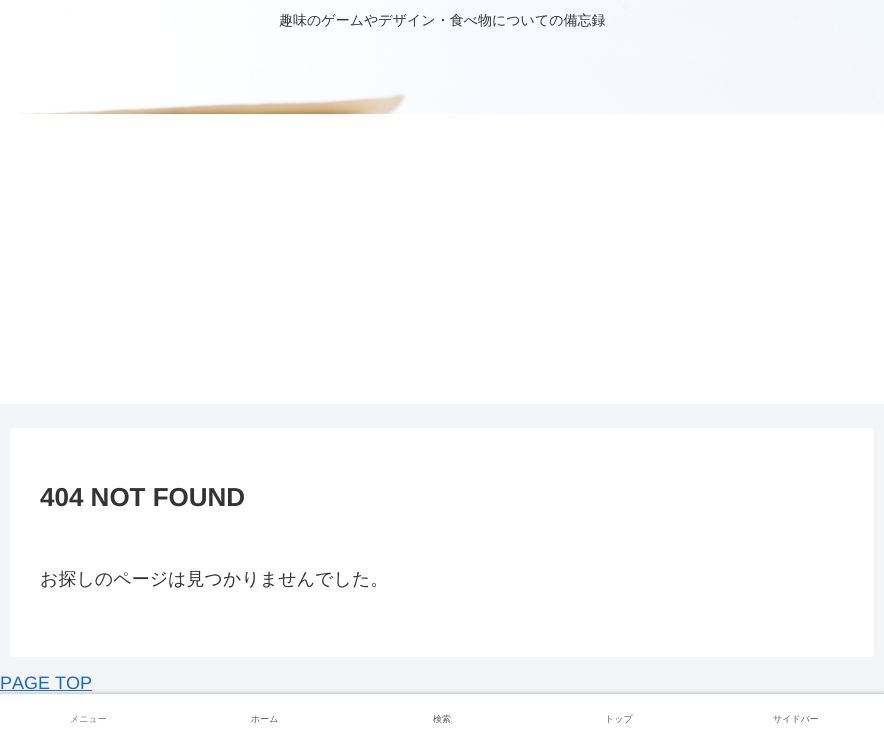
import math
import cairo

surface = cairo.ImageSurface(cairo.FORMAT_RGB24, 884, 744)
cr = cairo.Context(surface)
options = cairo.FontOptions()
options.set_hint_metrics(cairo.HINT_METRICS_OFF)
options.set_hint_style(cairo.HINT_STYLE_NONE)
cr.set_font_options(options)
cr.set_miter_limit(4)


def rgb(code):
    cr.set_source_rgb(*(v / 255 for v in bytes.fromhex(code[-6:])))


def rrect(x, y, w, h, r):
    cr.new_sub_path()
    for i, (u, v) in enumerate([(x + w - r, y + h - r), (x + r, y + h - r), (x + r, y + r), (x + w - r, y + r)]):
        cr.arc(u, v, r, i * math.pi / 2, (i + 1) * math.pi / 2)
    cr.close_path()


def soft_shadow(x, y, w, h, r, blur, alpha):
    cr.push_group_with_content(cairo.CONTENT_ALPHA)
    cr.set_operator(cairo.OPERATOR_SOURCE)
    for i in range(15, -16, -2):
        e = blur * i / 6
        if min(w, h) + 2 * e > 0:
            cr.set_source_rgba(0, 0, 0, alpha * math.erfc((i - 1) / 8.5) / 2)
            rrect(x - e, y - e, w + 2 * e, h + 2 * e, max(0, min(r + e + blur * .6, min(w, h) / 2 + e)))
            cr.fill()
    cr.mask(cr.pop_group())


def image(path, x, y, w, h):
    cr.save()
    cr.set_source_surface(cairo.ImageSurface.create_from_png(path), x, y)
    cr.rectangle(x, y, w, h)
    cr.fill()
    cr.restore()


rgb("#f4f5f7")
cr.paint()
rgb("#ffffff")
cr.rectangle(0, 0, 884, 404)
cr.fill()
image("img/1.png", 19, 0, 865, 114)
rrect(10, 428, 864, 229, 4)
cr.fill()
rgb("#1967d2")
cr.rectangle(0, 690, 92, 1)
cr.fill()
rgb("#a9a9a9")
soft_shadow(0, 694, 884, 50, 0, 2.5, 1)
rgb("#ffffff")
cr.rectangle(0, 694, 884, 50)
cr.fill()
cr.select_font_face("WenQuanYi Zen Hei Medium")
cr.set_font_size(14)
rgb("#333333")
cr.move_to(279, 25)
cr.show_text("趣味のゲームやデザイン・食べ物についての備忘録")
cr.select_font_face("Liberation Sans", cairo.FONT_SLANT_NORMAL, cairo.FONT_WEIGHT_BOLD)
cr.set_font_size(26)
cr.move_to(40, 506)
cr.show_text("404 NOT FOUND")
cr.select_font_face("WenQuanYi Zen Hei Medium")
cr.set_font_size(18)
cr.move_to(40, 585)
cr.show_text("お探しのページは見つかりませんでした。")
cr.select_font_face("Liberation Sans")
rgb("#1967d2")
cr.move_to(0, 689)
cr.show_text("PAGE TOP")
cr.select_font_face("WenQuanYi Zen Hei Medium")
cr.set_font_size(9)
rgb("#7c7c7c")
cr.move_to(70, 722)
cr.show_text("メニュー")
rgb("#5c5c5c")
for x, y, s in [
    (251, 722, "ホーム"),
    (433, 722, "検索"),
    (605, 722, "トップ"),
    (773, 722, "サイドバー"),
]:
    cr.move_to(x, y)
    cr.show_text(s)
surface.write_to_png("page.png")
